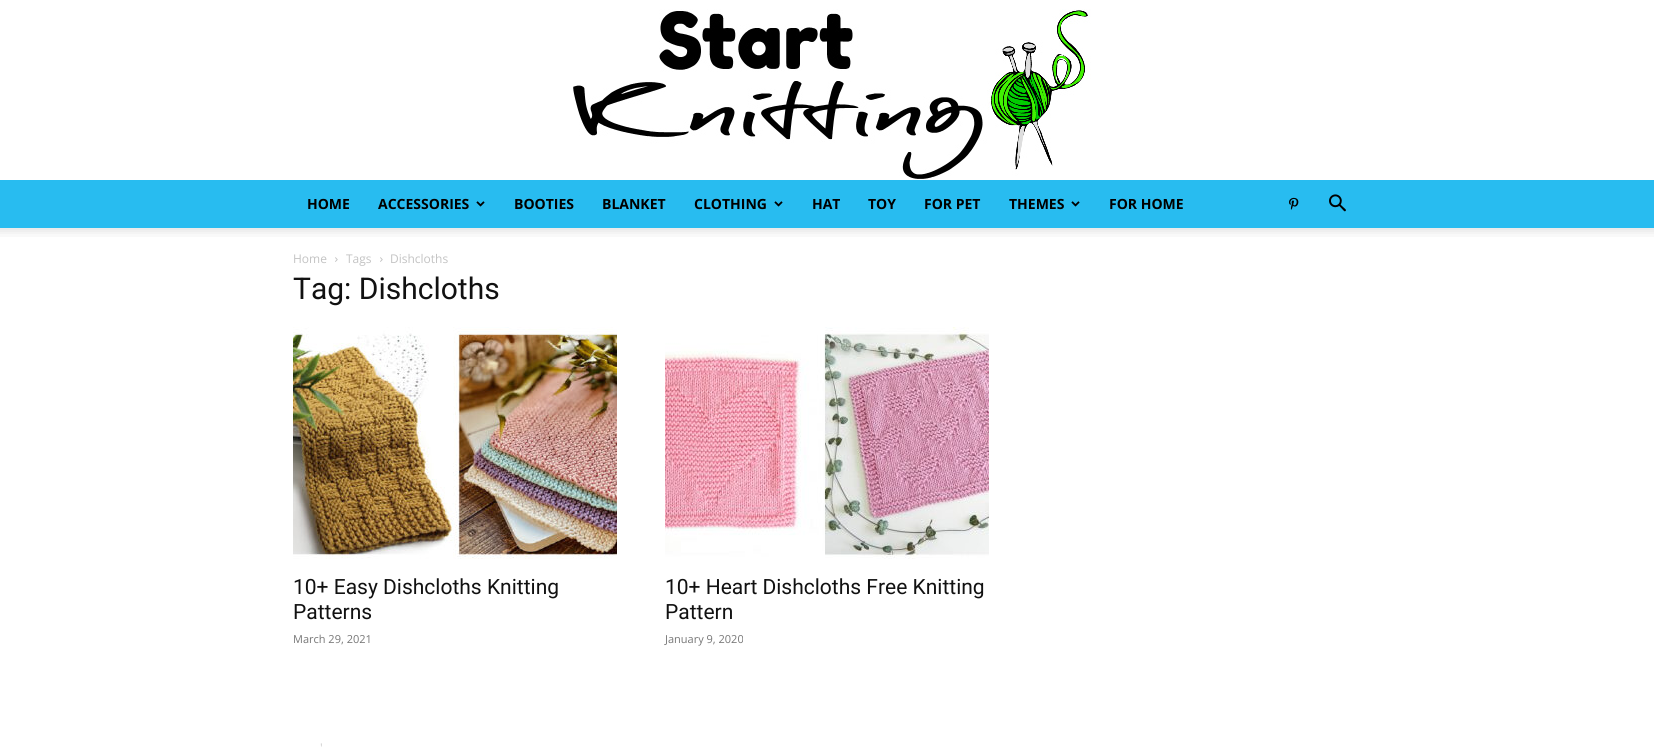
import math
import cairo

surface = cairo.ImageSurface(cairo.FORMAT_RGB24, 1654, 747)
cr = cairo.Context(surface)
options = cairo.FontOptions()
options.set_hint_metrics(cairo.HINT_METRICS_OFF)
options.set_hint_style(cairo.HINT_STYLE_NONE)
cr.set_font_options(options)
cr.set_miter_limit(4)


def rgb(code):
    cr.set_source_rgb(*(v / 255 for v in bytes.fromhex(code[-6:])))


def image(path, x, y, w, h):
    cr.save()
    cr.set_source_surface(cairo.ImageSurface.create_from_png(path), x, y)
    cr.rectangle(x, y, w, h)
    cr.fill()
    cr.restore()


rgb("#ffffff")
cr.paint()
image("img/1.png", 573, 9, 518, 170)
rgb("#28bcf0")
cr.rectangle(0, 180, 1654, 48)
cr.fill()
image("img/2.png", 476, 201, 9, 6)
image("img/2.png", 774, 201, 9, 6)
image("img/2.png", 1071, 201, 9, 6)
image("img/3.png", 1289, 197, 10, 13)
image("img/4.png", 1329, 194, 17, 18)
image("img/5.png", 0, 228, 1654, 9)
image("img/6.png", 335, 257, 3, 5)
image("img/6.png", 380, 257, 3, 5)
image("img/7.png", 293, 327, 324, 232)
image("img/8.png", 665, 327, 324, 232)
cr.select_font_face("Open Sans", cairo.FONT_SLANT_NORMAL, cairo.FONT_WEIGHT_BOLD)
cr.set_font_size(14)
rgb("#000000")
for x, y, s in [
    (307, 209, "HOME"),
    (378, 209, "ACCESSORIES"),
    (514, 209, "BOOTIES"),
    (602, 209, "BLANKET"),
    (694, 209, "CLOTHING"),
    (812, 209, "HAT"),
    (868, 209, "TOY"),
    (924, 209, "FOR PET"),
    (1009, 209, "THEMES"),
    (1109, 209, "FOR HOME"),
]:
    cr.move_to(x, y)
    cr.show_text(s)
cr.select_font_face("Open Sans")
cr.set_font_size(12)
rgb("#c3c3c3")
for x, y, s in [
    (293, 263, "Home"),
    (346, 263, "Tags"),
    (390, 263, "Dishcloths"),
]:
    cr.move_to(x, y)
    cr.show_text(s)
cr.select_font_face("Roboto")
cr.set_font_size(30)
rgb("#111111")
cr.move_to(293, 299)
cr.show_text("Tag: Dishcloths")
cr.set_font_size(21)
cr.move_to(293, 594)
cr.show_text("10+ Easy Dishcloths Knitting")
cr.move_to(293, 619)
cr.show_text("Patterns")
cr.select_font_face("Open Sans")
cr.set_font_size(11)
rgb("#767676")
cr.move_to(293, 643)
cr.show_text("March 29, 2021")
cr.select_font_face("Roboto")
cr.set_font_size(21)
rgb("#111111")
cr.move_to(665, 594)
cr.show_text("10+ Heart Dishcloths Free Knitting")
cr.move_to(665, 619)
cr.show_text("Pattern")
cr.select_font_face("Open Sans")
cr.set_font_size(11)
rgb("#767676")
cr.move_to(665, 643)
cr.show_text("January 9, 2020")
cr.set_font_size(12)
rgb("#cccccc")
cr.move_to(320, 752)
cr.show_text("'")
surface.write_to_png("page.png")
